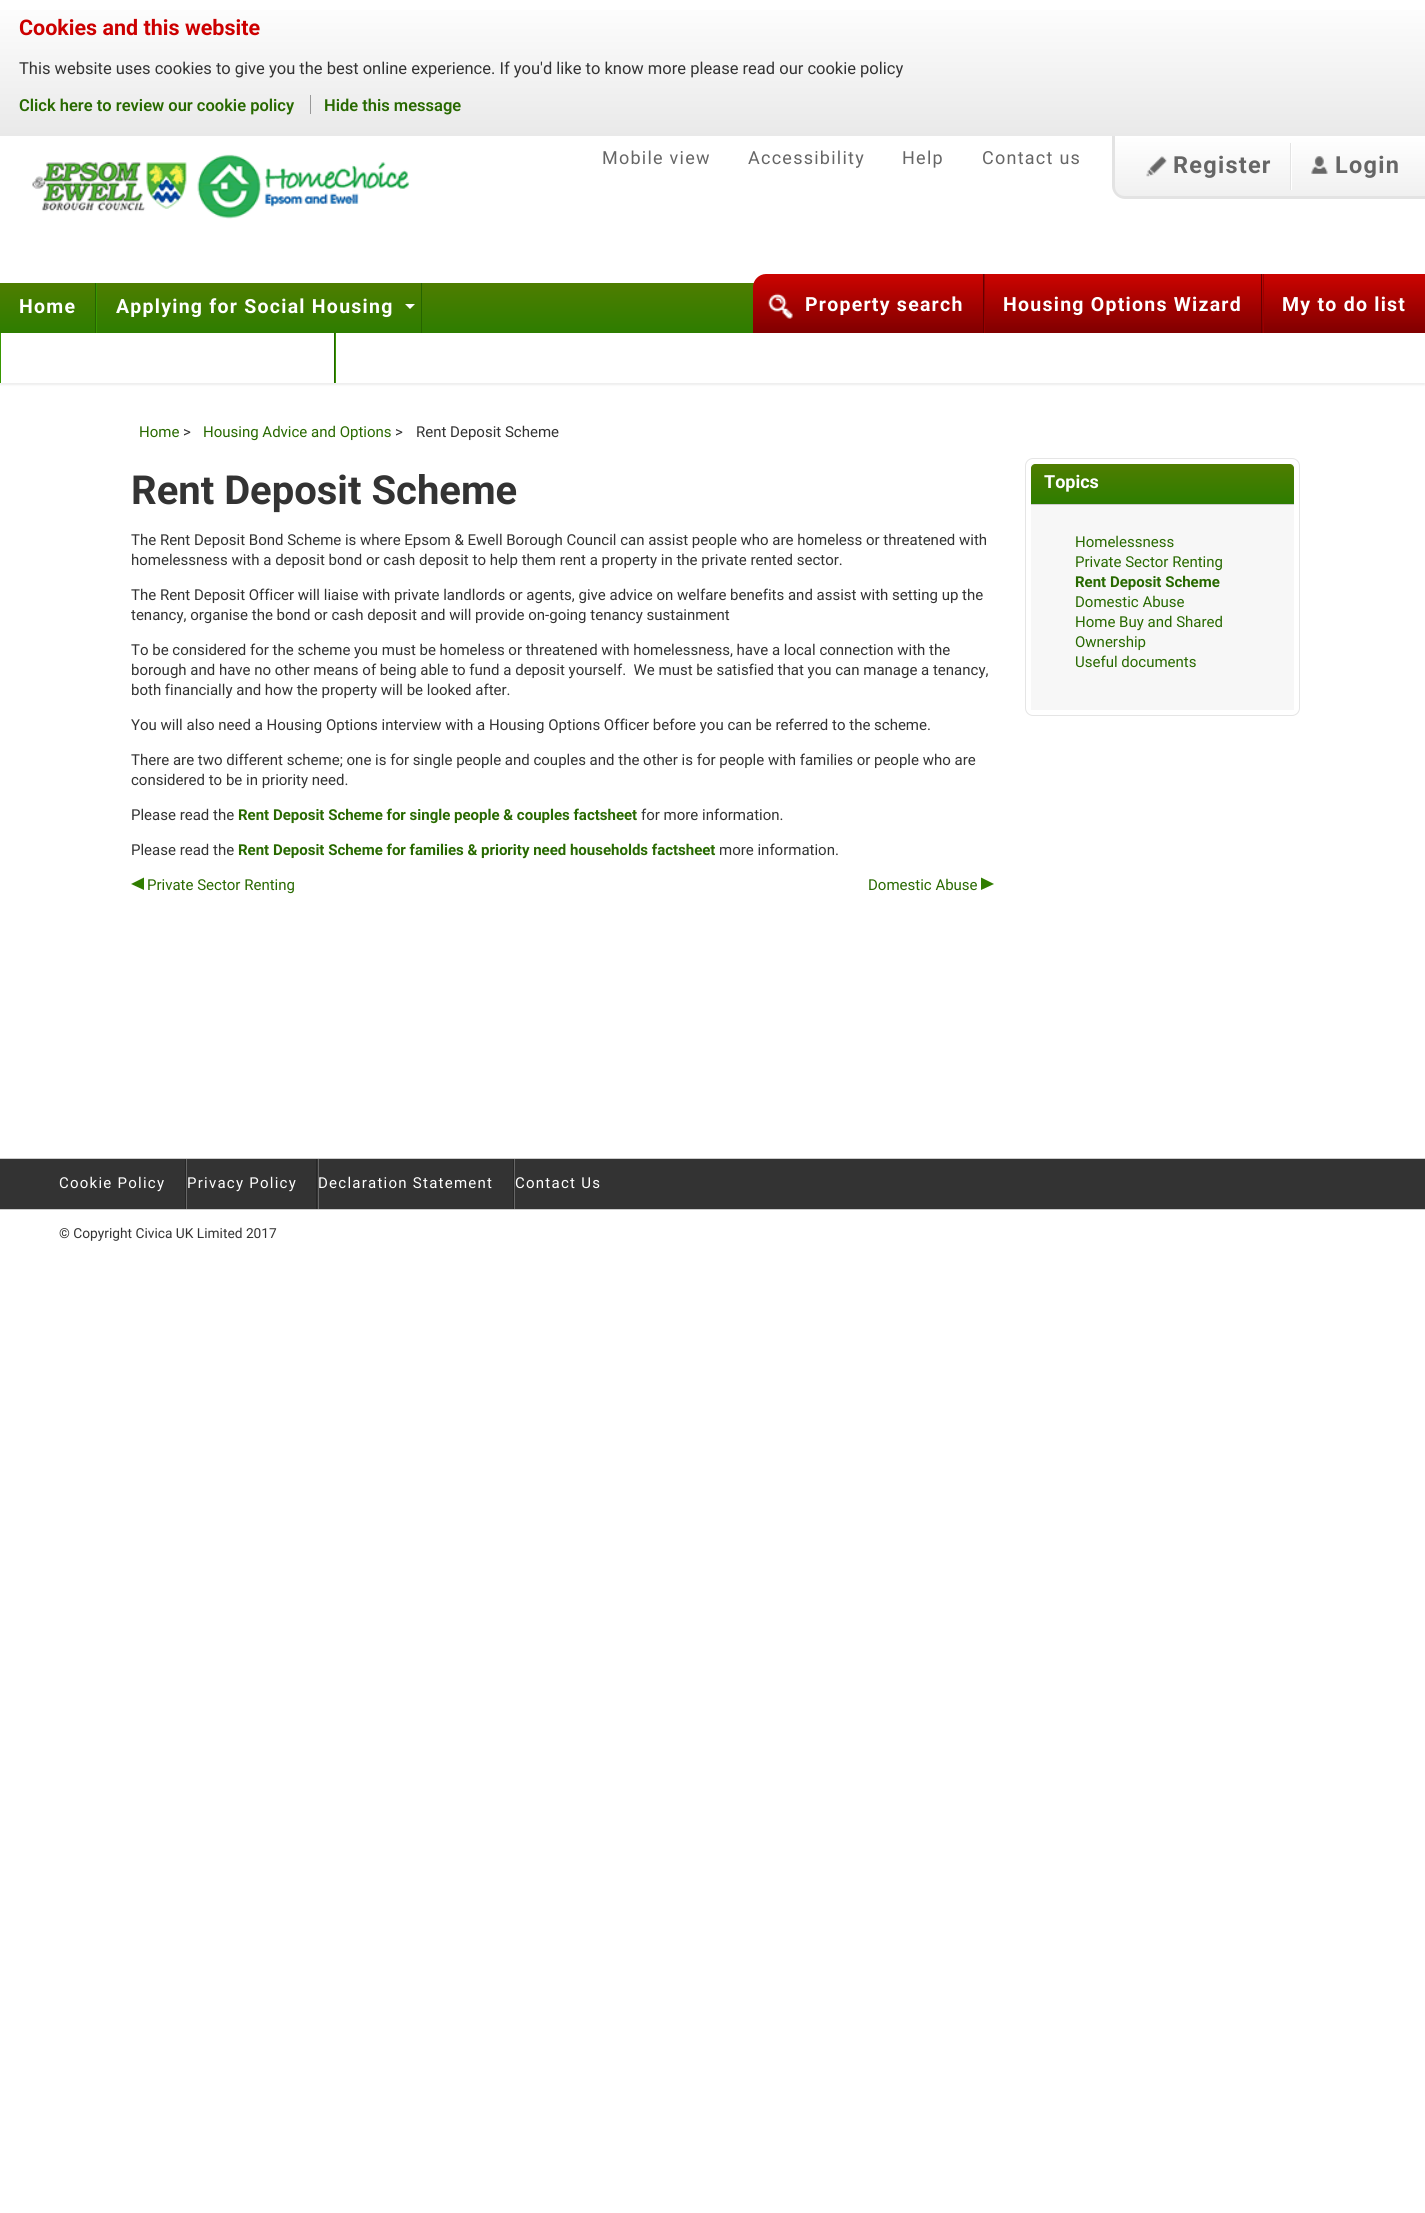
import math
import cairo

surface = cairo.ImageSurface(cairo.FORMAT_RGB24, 1425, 2213)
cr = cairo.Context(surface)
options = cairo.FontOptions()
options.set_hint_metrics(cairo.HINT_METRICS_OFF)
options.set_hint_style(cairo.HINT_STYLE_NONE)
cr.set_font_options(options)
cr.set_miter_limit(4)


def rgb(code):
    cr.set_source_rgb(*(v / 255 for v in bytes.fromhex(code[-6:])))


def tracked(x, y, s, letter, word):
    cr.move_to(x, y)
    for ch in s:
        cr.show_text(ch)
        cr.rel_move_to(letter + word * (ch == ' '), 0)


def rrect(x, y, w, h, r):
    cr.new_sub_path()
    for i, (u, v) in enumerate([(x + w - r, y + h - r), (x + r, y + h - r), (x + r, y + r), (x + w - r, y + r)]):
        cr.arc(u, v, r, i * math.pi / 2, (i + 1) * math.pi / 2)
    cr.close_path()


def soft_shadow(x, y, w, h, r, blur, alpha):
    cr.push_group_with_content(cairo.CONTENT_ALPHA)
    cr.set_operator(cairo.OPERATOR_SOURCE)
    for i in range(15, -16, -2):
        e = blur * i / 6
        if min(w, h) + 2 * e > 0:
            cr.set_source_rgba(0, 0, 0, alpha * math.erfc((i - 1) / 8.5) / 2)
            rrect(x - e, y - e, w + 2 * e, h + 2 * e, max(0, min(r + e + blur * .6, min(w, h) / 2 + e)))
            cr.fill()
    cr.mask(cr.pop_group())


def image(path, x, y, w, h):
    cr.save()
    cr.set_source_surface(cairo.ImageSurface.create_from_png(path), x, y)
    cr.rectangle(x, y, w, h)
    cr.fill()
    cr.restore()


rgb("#ffffff")
cr.paint()
gradient = cairo.LinearGradient(713, 0, 713, 136)
gradient.add_color_stop_rgba(0, 0.996, 0.996, 0.996, 1)
gradient.add_color_stop_rgba(1, 0.914, 0.914, 0.914, 1)
cr.set_source(gradient)
cr.rectangle(0, 10, 1425, 126)
cr.fill()
rgb("#999999")
cr.rectangle(310, 95, 1, 19)
cr.fill()
image("img/1.png", 32, 154, 378, 65)
cr.save()
cr.new_path()
cr.move_to(1113, 136)
cr.line_to(1425, 136)
cr.line_to(1425, 199)
cr.line_to(1126, 199)
cr.curve_to(1119, 199, 1113, 193, 1113, 186)
cr.close_path()
cr.clip()
gradient = cairo.LinearGradient(1270, 136, 1270, 196)
gradient.add_color_stop_rgba(0, 1, 1, 1, 1)
gradient.add_color_stop_rgba(1, 0.941, 0.941, 0.941, 1)
cr.set_source(gradient)
cr.rectangle(1114, 136, 311, 60)
cr.fill()
cr.restore()
rgb("#e3e3e3")
cr.set_fill_rule(cairo.FILL_RULE_EVEN_ODD)
cr.new_path()
cr.move_to(1112, 136)
cr.line_to(1425, 136)
cr.line_to(1425, 199)
cr.line_to(1125, 199)
cr.curve_to(1118, 199, 1112, 193, 1112, 186)
cr.close_path()
cr.move_to(1115, 136)
cr.line_to(1425, 136)
cr.line_to(1425, 196)
cr.line_to(1125, 196)
cr.curve_to(1119, 196, 1115, 192, 1115, 186)
cr.close_path()
cr.fill()
cr.rectangle(1290, 143, 1, 47)
cr.fill()
image("img/2.png", 1146, 156, 21, 21)
rgb("#ffffff")
cr.rectangle(1291, 143, 1, 47)
cr.fill()
image("img/3.png", 1311, 156, 17, 18)
cr.save()
cr.new_path()
cr.move_to(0, 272)
cr.line_to(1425, 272)
cr.line_to(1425, 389)
cr.line_to(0, 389)
cr.close_path()
cr.move_to(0, 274)
cr.line_to(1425, 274)
cr.line_to(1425, 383)
cr.line_to(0, 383)
cr.close_path()
cr.clip()
rgb("#000000")
soft_shadow(0, 276, 1425, 109, 0, 1, 0.07)
cr.restore()
gradient = cairo.LinearGradient(706, 282, 706, 333)
gradient.add_color_stop_rgba(0, 0.31, 0.49, 0, 1)
gradient.add_color_stop_rgba(1, 0.18, 0.49, 0, 1)
cr.set_source(gradient)
cr.rectangle(0, 283, 754, 50)
cr.fill()
for x, y, w, h, color in [
    (95, 283, 1, 50, "#256400"),
    (421, 283, 1, 50, "#256400"),
    (96, 283, 1, 50, "#379700"),
]:
    rgb(color)
    cr.rectangle(x, y, w, h)
    cr.fill()
rgb("#ffffff")
cr.set_fill_rule(cairo.FILL_RULE_WINDING)
cr.new_path()
cr.move_to(405, 304)
cr.line_to(415, 304)
cr.line_to(410, 309)
cr.close_path()
cr.fill()
for x, y, w, h, color in [
    (334, 333, 1, 50, "#256400"),
    (0, 333, 1, 50, "#379700"),
    (335, 333, 1, 50, "#379700"),
]:
    rgb(color)
    cr.rectangle(x, y, w, h)
    cr.fill()
gradient = cairo.LinearGradient(1089, 274, 1089, 333)
gradient.add_color_stop_rgba(0, 0.8, 0.012, 0, 1)
gradient.add_color_stop_rgba(1, 0.502, 0, 0, 1)
cr.set_source(gradient)
cr.new_path()
cr.move_to(766, 274)
cr.line_to(1425, 274)
cr.line_to(1425, 333)
cr.line_to(753, 333)
cr.line_to(753, 287)
cr.curve_to(753, 280, 759, 274, 766, 274)
cr.close_path()
cr.fill()
rgb("#660000")
cr.rectangle(983, 274, 1, 59)
cr.fill()
image("img/4.png", 768, 293, 25, 26)
for x, y, w, h, color in [
    (1261, 274, 1, 59, "#660000"),
    (984, 274, 1, 59, "#990000"),
    (1263, 274, 1, 59, "#990000"),
]:
    rgb(color)
    cr.rectangle(x, y, w, h)
    cr.fill()
rgb("#307d00")
cr.new_path()
cr.move_to(144, 877.5)
cr.line_to(144, 890)
cr.line_to(131, 884)
cr.close_path()
cr.fill()
cr.new_path()
cr.move_to(981, 890)
cr.line_to(981, 877.5)
cr.line_to(994, 884)
cr.close_path()
cr.fill()
rrect(1025.5, 458.5, 274, 257, 7.5)
rgb("#e5e5e5")
cr.set_line_width(1)
cr.stroke()
rgb("#f7f7f7")
cr.rectangle(1031, 464, 263, 246)
cr.fill()
gradient = cairo.LinearGradient(1163, 464, 1163, 504)
gradient.add_color_stop_rgba(0, 0.31, 0.49, 0, 1)
gradient.add_color_stop_rgba(1, 0.18, 0.49, 0, 1)
cr.set_source(gradient)
cr.new_path()
cr.move_to(1035, 464)
cr.line_to(1290, 464)
cr.curve_to(1292, 464, 1294, 466, 1294, 468)
cr.line_to(1294, 504)
cr.line_to(1031, 504)
cr.line_to(1031, 468)
cr.curve_to(1031, 466, 1033, 464, 1035, 464)
cr.close_path()
cr.fill()
for x, y, w, h, color in [
    (1031, 504, 263, 1, "#cccccc"),
    (0, 1158, 1425, 1, "#cccccc"),
    (0, 1209, 1425, 1, "#cccccc"),
    (0, 1159, 1425, 50, "#333333"),
    (185, 1159, 1, 50, "#262626"),
    (316, 1159, 1, 50, "#262626"),
    (186, 1159, 1, 50, "#666666"),
    (513, 1159, 1, 50, "#262626"),
    (318, 1159, 1, 50, "#666666"),
    (514, 1159, 1, 50, "#666666"),
]:
    rgb(color)
    cr.rectangle(x, y, w, h)
    cr.fill()
cr.select_font_face("Roboto", cairo.FONT_SLANT_NORMAL, cairo.FONT_WEIGHT_BOLD)
cr.set_font_size(21.5)
rgb("#cc0000")
cr.move_to(19, 35)
cr.show_text("Cookies and this website")
cr.select_font_face("Roboto")
cr.set_font_size(16.5)
rgb("#333333")
cr.move_to(19, 74)
cr.show_text("This website uses cookies to give you the best online experience. If you'd like to know more please read our cookie policy")
cr.select_font_face("Roboto SemiBold")
rgb("#286900")
cr.move_to(19, 111)
cr.show_text("Click here to review our cookie policy")
cr.move_to(324, 111)
cr.show_text("Hide this message")
cr.select_font_face("Roboto")
cr.set_font_size(18)
rgb("#666666")
for x, y, s in [
    (602, 164, "Mobile view"),
    (748, 164, "Accessibility"),
    (902, 164, "Help"),
    (982, 164, "Contact us"),
]:
    tracked(x, y, s, 1.25, 0)
cr.select_font_face("Roboto", cairo.FONT_SLANT_NORMAL, cairo.FONT_WEIGHT_BOLD)
cr.set_font_size(23.5)
tracked(1173, 173, "Register", 1.25, 0)
tracked(1335, 173, "Login", 1.25, 0)
cr.set_font_size(19.5)
rgb("#ffffff")
for x, y, s in [
    (19, 313, "Home"),
    (116, 313, "Applying for Social Housing"),
    (805, 311, "Property search"),
    (1003, 311, "Housing Options Wizard"),
    (1282, 311, "My to do list"),
]:
    tracked(x, y, s, 1.25, 0)
cr.select_font_face("Roboto")
cr.set_font_size(15)
rgb("#286900")
cr.move_to(139, 437)
cr.show_text("Home")
rgb("#333333")
cr.move_to(183, 437)
cr.show_text(">")
rgb("#286900")
cr.move_to(203, 437)
cr.show_text("Housing Advice and Options")
rgb("#333333")
cr.move_to(395, 437)
cr.show_text(">")
cr.move_to(416, 437)
cr.show_text("Rent Deposit Scheme")
cr.select_font_face("Roboto", cairo.FONT_SLANT_NORMAL, cairo.FONT_WEIGHT_BOLD)
cr.set_font_size(40)
cr.move_to(131, 504)
cr.show_text("Rent Deposit Scheme")
cr.select_font_face("Roboto")
cr.set_font_size(15)
for x, y, s in [
    (131, 545, "The Rent Deposit Bond Scheme is where Epsom & Ewell Borough Council can assist people who are homeless or threatened with"),
    (131, 565, "homelessness with a deposit bond or cash deposit to help them rent a property in the private rented sector."),
    (131, 600, "The Rent Deposit Officer will liaise with private landlords or agents, give advice on welfare benefits and assist with setting up the"),
    (131, 620, "tenancy, organise the bond or cash deposit and will provide on-going tenancy sustainment"),
    (131, 655, "To be considered for the scheme you must be homeless or threatened with homelessness, have a local connection with the"),
    (131, 675, "borough and have no other means of being able to fund a deposit yourself.  We must be satisfied that you can manage a tenancy,"),
    (131, 695, "both financially and how the property will be looked after."),
    (131, 730, "You will also need a Housing Options interview with a Housing Options Officer before you can be referred to the scheme."),
    (131, 765, "There are two different scheme; one is for single people and couples and the other is for people with families or people who are"),
    (131, 785, "considered to be in priority need."),
    (131, 820, "Please read the"),
]:
    cr.move_to(x, y)
    cr.show_text(s)
cr.select_font_face("Roboto", cairo.FONT_SLANT_NORMAL, cairo.FONT_WEIGHT_BOLD)
rgb("#286900")
cr.move_to(238, 820)
cr.show_text("Rent Deposit Scheme for single people & couples factsheet")
cr.select_font_face("Roboto")
rgb("#333333")
cr.move_to(641, 820)
cr.show_text("for more information.")
cr.move_to(131, 855)
cr.show_text("Please read the")
cr.select_font_face("Roboto", cairo.FONT_SLANT_NORMAL, cairo.FONT_WEIGHT_BOLD)
rgb("#286900")
cr.move_to(238, 855)
cr.show_text("Rent Deposit Scheme for families & priority need households factsheet")
cr.select_font_face("Roboto")
rgb("#333333")
cr.move_to(719, 855)
cr.show_text("more information.")
rgb("#286900")
cr.move_to(147, 890)
cr.show_text("Private Sector Renting")
cr.move_to(868, 890)
cr.show_text("Domestic Abuse")
cr.select_font_face("Roboto", cairo.FONT_SLANT_NORMAL, cairo.FONT_WEIGHT_BOLD)
cr.set_font_size(18)
rgb("#ffffff")
cr.move_to(1044, 488)
cr.show_text("Topics")
cr.select_font_face("Roboto")
cr.set_font_size(15)
rgb("#286900")
cr.move_to(1075, 547)
cr.show_text("Homelessness")
cr.move_to(1075, 567)
cr.show_text("Private Sector Renting")
cr.select_font_face("Roboto", cairo.FONT_SLANT_NORMAL, cairo.FONT_WEIGHT_BOLD)
cr.move_to(1075, 587)
cr.show_text("Rent Deposit Scheme")
cr.select_font_face("Roboto")
for x, y, s in [
    (1075, 607, "Domestic Abuse"),
    (1075, 627, "Home Buy and Shared"),
    (1075, 647, "Ownership"),
    (1075, 667, "Useful documents"),
]:
    cr.move_to(x, y)
    cr.show_text(s)
rgb("#ffffff")
for x, y, s in [
    (59, 1188, "Cookie Policy"),
    (187, 1188, "Privacy Policy"),
    (318, 1188, "Declaration Statement"),
    (515, 1188, "Contact Us"),
]:
    tracked(x, y, s, 1.25, 0)
cr.set_font_size(13.75)
rgb("#333333")
cr.move_to(59, 1238)
cr.show_text("© Copyright Civica UK Limited 2017")
surface.write_to_png("page.png")
